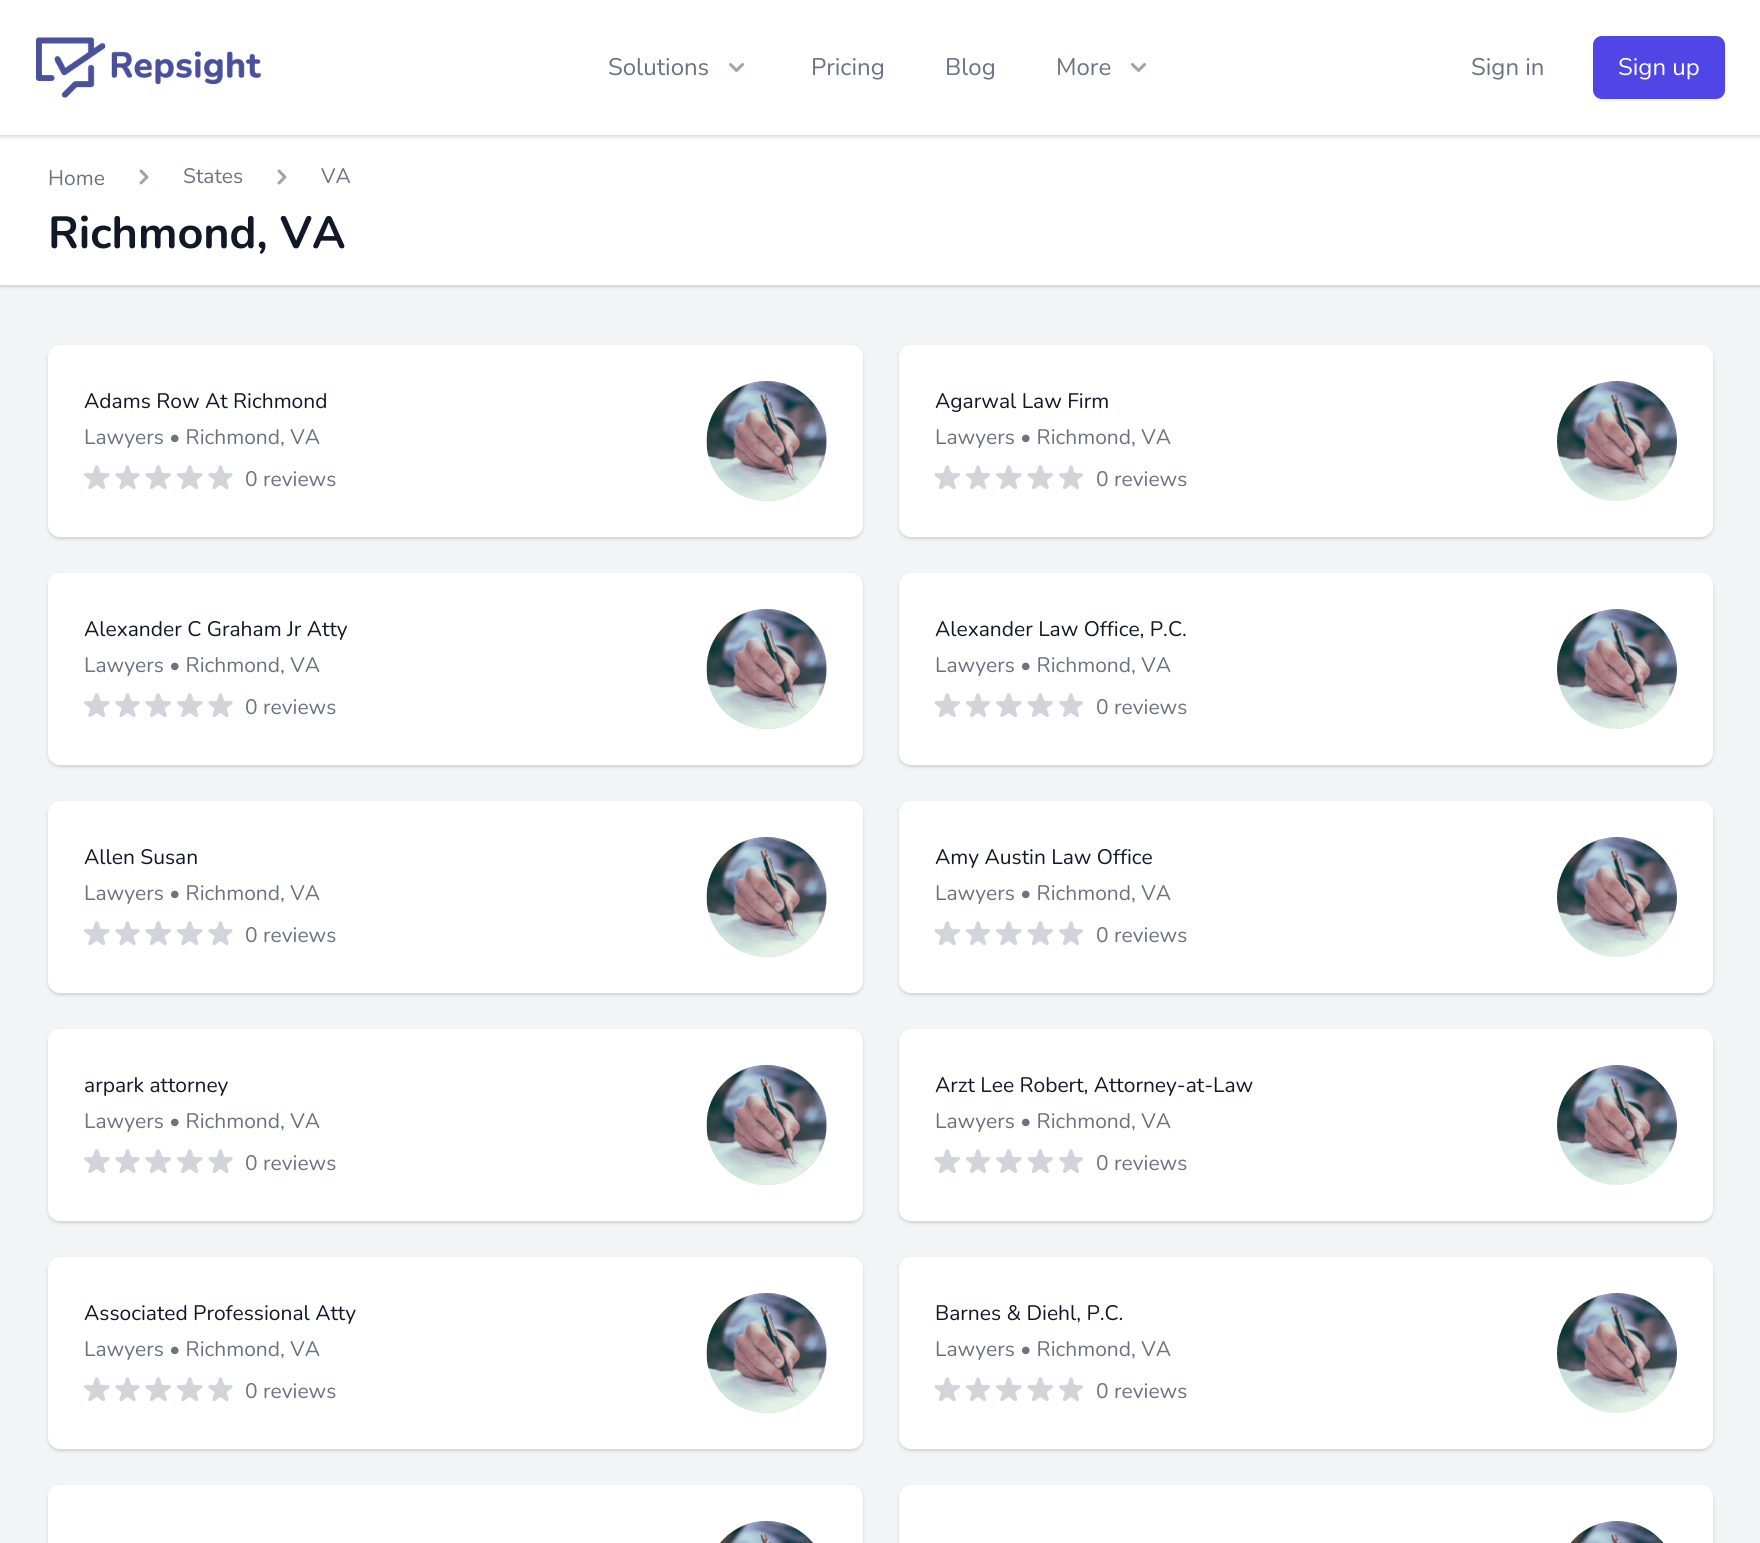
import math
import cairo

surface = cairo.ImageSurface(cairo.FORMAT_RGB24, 1760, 1543)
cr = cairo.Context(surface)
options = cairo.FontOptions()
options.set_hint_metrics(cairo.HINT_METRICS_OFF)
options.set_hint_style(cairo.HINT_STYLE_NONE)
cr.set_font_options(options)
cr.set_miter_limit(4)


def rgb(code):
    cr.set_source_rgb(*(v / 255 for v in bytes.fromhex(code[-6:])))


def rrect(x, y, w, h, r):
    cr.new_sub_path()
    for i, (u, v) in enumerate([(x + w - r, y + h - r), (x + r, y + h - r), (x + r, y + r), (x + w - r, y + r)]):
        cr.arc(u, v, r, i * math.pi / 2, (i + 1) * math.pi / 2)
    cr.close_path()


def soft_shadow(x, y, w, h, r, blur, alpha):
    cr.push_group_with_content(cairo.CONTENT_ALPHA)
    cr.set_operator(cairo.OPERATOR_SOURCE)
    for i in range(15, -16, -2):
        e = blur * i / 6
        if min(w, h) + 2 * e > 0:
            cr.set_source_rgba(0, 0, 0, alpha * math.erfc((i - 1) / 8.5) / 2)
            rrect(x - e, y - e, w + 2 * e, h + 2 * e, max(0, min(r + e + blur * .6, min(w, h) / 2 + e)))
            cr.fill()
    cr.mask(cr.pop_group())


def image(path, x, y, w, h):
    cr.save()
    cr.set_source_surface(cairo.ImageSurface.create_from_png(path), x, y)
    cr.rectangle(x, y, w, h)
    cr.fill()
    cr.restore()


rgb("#f3f4f6")
cr.paint()
rgb("#000000")
soft_shadow(0, 137, 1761, 150, 0, 1.5, 0.06)
soft_shadow(0, 137, 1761, 150, 0, 2, 0.1)
rgb("#ffffff")
cr.rectangle(0, 135, 1760, 150)
cr.fill()
rgb("#000000")
soft_shadow(0, 2, 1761, 135, 0, 1.5, 0.06)
soft_shadow(0, 2, 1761, 135, 0, 2, 0.1)
rgb("#ffffff")
cr.rectangle(0, 0, 1760, 135)
cr.fill()
image("img/1.png", 36, 37, 225, 61)
image("img/2.png", 729, 63, 15, 9)
image("img/2.png", 1131, 63, 15, 9)
rgb("#000000")
soft_shadow(1593, 38, 132, 63, 9, 1.5, 0.05)
rgb("#4f46e5")
rrect(1593, 36, 132, 63, 9)
cr.fill()
image("img/3.png", 139, 169, 10, 16)
image("img/3.png", 277, 169, 10, 16)
rgb("#000000")
soft_shadow(48, 347, 815, 192, 12, 1.5, 0.06)
soft_shadow(48, 347, 815, 192, 12, 2, 0.1)
rgb("#ffffff")
rrect(48, 345, 815, 192, 12)
cr.fill()
image("img/4.png", 84, 465, 26, 24)
image("img/5.png", 115, 465, 25, 24)
image("img/6.png", 145, 465, 26, 24)
image("img/7.png", 177, 465, 26, 24)
image("img/5.png", 208, 465, 25, 24)
rgb("#d1d5db")
cr.arc(767, 441, 60, 0, 2 * math.pi)
cr.fill()
image("img/8.png", 706, 381, 121, 120)
rgb("#000000")
soft_shadow(899, 347, 814, 192, 12, 1.5, 0.06)
soft_shadow(899, 347, 814, 192, 12, 2, 0.1)
rgb("#ffffff")
rrect(899, 345, 814, 192, 12)
cr.fill()
image("img/9.png", 934, 465, 26, 24)
image("img/10.png", 966, 465, 24, 24)
image("img/7.png", 996, 465, 26, 24)
image("img/11.png", 1027, 465, 26, 24)
image("img/10.png", 1059, 465, 24, 24)
image("img/12.png", 1557, 381, 120, 120)
rgb("#000000")
soft_shadow(48, 575, 815, 192, 12, 1.5, 0.06)
soft_shadow(48, 575, 815, 192, 12, 2, 0.1)
rgb("#ffffff")
rrect(48, 573, 815, 192, 12)
cr.fill()
image("img/4.png", 84, 693, 26, 24)
image("img/5.png", 115, 693, 25, 24)
image("img/6.png", 145, 693, 26, 24)
image("img/7.png", 177, 693, 26, 24)
image("img/5.png", 208, 693, 25, 24)
rgb("#d1d5db")
cr.arc(767, 669, 60, 0, 2 * math.pi)
cr.fill()
image("img/8.png", 706, 609, 121, 120)
rgb("#000000")
soft_shadow(899, 575, 814, 192, 12, 1.5, 0.06)
soft_shadow(899, 575, 814, 192, 12, 2, 0.1)
rgb("#ffffff")
rrect(899, 573, 814, 192, 12)
cr.fill()
image("img/9.png", 934, 693, 26, 24)
image("img/10.png", 966, 693, 24, 24)
image("img/7.png", 996, 693, 26, 24)
image("img/11.png", 1027, 693, 26, 24)
image("img/10.png", 1059, 693, 24, 24)
image("img/12.png", 1557, 609, 120, 120)
rgb("#000000")
soft_shadow(48, 803, 815, 192, 12, 1.5, 0.06)
soft_shadow(48, 803, 815, 192, 12, 2, 0.1)
rgb("#ffffff")
rrect(48, 801, 815, 192, 12)
cr.fill()
image("img/4.png", 84, 921, 26, 24)
image("img/5.png", 115, 921, 25, 24)
image("img/6.png", 145, 921, 26, 24)
image("img/7.png", 177, 921, 26, 24)
image("img/5.png", 208, 921, 25, 24)
rgb("#d1d5db")
cr.arc(767, 897, 60, 0, 2 * math.pi)
cr.fill()
image("img/8.png", 706, 837, 121, 120)
rgb("#000000")
soft_shadow(899, 803, 814, 192, 12, 1.5, 0.06)
soft_shadow(899, 803, 814, 192, 12, 2, 0.1)
rgb("#ffffff")
rrect(899, 801, 814, 192, 12)
cr.fill()
image("img/9.png", 934, 921, 26, 24)
image("img/10.png", 966, 921, 24, 24)
image("img/7.png", 996, 921, 26, 24)
image("img/11.png", 1027, 921, 26, 24)
image("img/10.png", 1059, 921, 24, 24)
image("img/12.png", 1557, 837, 120, 120)
rgb("#000000")
soft_shadow(48, 1031, 815, 192, 12, 1.5, 0.06)
soft_shadow(48, 1031, 815, 192, 12, 2, 0.1)
rgb("#ffffff")
rrect(48, 1029, 815, 192, 12)
cr.fill()
image("img/4.png", 84, 1149, 26, 24)
image("img/5.png", 115, 1149, 25, 24)
image("img/6.png", 145, 1149, 26, 24)
image("img/7.png", 177, 1149, 26, 24)
image("img/5.png", 208, 1149, 25, 24)
rgb("#d1d5db")
cr.arc(767, 1125, 60, 0, 2 * math.pi)
cr.fill()
image("img/8.png", 706, 1065, 121, 120)
rgb("#000000")
soft_shadow(899, 1031, 814, 192, 12, 1.5, 0.06)
soft_shadow(899, 1031, 814, 192, 12, 2, 0.1)
rgb("#ffffff")
rrect(899, 1029, 814, 192, 12)
cr.fill()
image("img/9.png", 934, 1149, 26, 24)
image("img/10.png", 966, 1149, 24, 24)
image("img/7.png", 996, 1149, 26, 24)
image("img/11.png", 1027, 1149, 26, 24)
image("img/10.png", 1059, 1149, 24, 24)
image("img/12.png", 1557, 1065, 120, 120)
rgb("#000000")
soft_shadow(48, 1259, 815, 192, 12, 1.5, 0.06)
soft_shadow(48, 1259, 815, 192, 12, 2, 0.1)
rgb("#ffffff")
rrect(48, 1257, 815, 192, 12)
cr.fill()
image("img/4.png", 84, 1377, 26, 24)
image("img/5.png", 115, 1377, 25, 24)
image("img/6.png", 145, 1377, 26, 24)
image("img/7.png", 177, 1377, 26, 24)
image("img/5.png", 208, 1377, 25, 24)
rgb("#d1d5db")
cr.arc(767, 1353, 60, 0, 2 * math.pi)
cr.fill()
image("img/8.png", 706, 1293, 121, 120)
rgb("#000000")
soft_shadow(899, 1259, 814, 192, 12, 1.5, 0.06)
soft_shadow(899, 1259, 814, 192, 12, 2, 0.1)
rgb("#ffffff")
rrect(899, 1257, 814, 192, 12)
cr.fill()
image("img/9.png", 934, 1377, 26, 24)
image("img/10.png", 966, 1377, 24, 24)
image("img/7.png", 996, 1377, 26, 24)
image("img/11.png", 1027, 1377, 26, 24)
image("img/10.png", 1059, 1377, 24, 24)
image("img/12.png", 1557, 1293, 120, 120)
rgb("#000000")
soft_shadow(48, 1487, 815, 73, 12, 1.5, 0.06)
soft_shadow(48, 1487, 815, 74, 12, 2, 0.1)
rgb("#ffffff")
rrect(48, 1485, 815, 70, 12)
cr.fill()
rgb("#d1d5db")
rrect(707, 1521, 120, 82, 60)
cr.fill()
image("img/13.png", 720, 1521, 93, 22)
rgb("#000000")
soft_shadow(899, 1487, 814, 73, 12, 1.5, 0.06)
soft_shadow(899, 1487, 814, 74, 12, 2, 0.1)
rgb("#ffffff")
rrect(899, 1485, 814, 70, 12)
cr.fill()
image("img/14.png", 1570, 1521, 94, 22)
cr.select_font_face("Nunito")
cr.set_font_size(24)
rgb("#6b7280")
for x, y, s in [
    (608, 75, "Solutions"),
    (811, 75, "Pricing"),
    (945, 75, "Blog"),
    (1056, 75, "More"),
    (1471, 75, "Sign in"),
]:
    cr.move_to(x, y)
    cr.show_text(s)
rgb("#ffffff")
cr.move_to(1618, 75)
cr.show_text("Sign up")
cr.set_font_size(21)
rgb("#6b7280")
for x, y, s in [
    (48, 185, "Home"),
    (183, 183, "States"),
    (321, 183, "VA"),
]:
    cr.move_to(x, y)
    cr.show_text(s)
cr.select_font_face("Nunito", cairo.FONT_SLANT_NORMAL, cairo.FONT_WEIGHT_BOLD)
cr.set_font_size(45)
rgb("#111827")
cr.move_to(48, 248)
cr.show_text("Richmond, VA")
cr.select_font_face("Nunito")
cr.set_font_size(21)
cr.move_to(84, 408)
cr.show_text("Adams Row At Richmond")
rgb("#6b7280")
cr.move_to(84, 444)
cr.show_text("Lawyers • Richmond, VA")
cr.move_to(245, 486)
cr.show_text("0 reviews")
rgb("#111827")
cr.move_to(935, 408)
cr.show_text("Agarwal Law Firm")
rgb("#6b7280")
cr.move_to(935, 444)
cr.show_text("Lawyers • Richmond, VA")
cr.move_to(1096, 486)
cr.show_text("0 reviews")
rgb("#111827")
cr.move_to(84, 636)
cr.show_text("Alexander C Graham Jr Atty")
rgb("#6b7280")
cr.move_to(84, 672)
cr.show_text("Lawyers • Richmond, VA")
cr.move_to(245, 714)
cr.show_text("0 reviews")
rgb("#111827")
cr.move_to(935, 636)
cr.show_text("Alexander Law Office, P.C.")
rgb("#6b7280")
cr.move_to(935, 672)
cr.show_text("Lawyers • Richmond, VA")
cr.move_to(1096, 714)
cr.show_text("0 reviews")
rgb("#111827")
cr.move_to(84, 864)
cr.show_text("Allen Susan")
rgb("#6b7280")
cr.move_to(84, 900)
cr.show_text("Lawyers • Richmond, VA")
cr.move_to(245, 942)
cr.show_text("0 reviews")
rgb("#111827")
cr.move_to(935, 864)
cr.show_text("Amy Austin Law Office")
rgb("#6b7280")
cr.move_to(935, 900)
cr.show_text("Lawyers • Richmond, VA")
cr.move_to(1096, 942)
cr.show_text("0 reviews")
rgb("#111827")
cr.move_to(84, 1092)
cr.show_text("arpark attorney")
rgb("#6b7280")
cr.move_to(84, 1128)
cr.show_text("Lawyers • Richmond, VA")
cr.move_to(245, 1170)
cr.show_text("0 reviews")
rgb("#111827")
cr.move_to(935, 1092)
cr.show_text("Arzt Lee Robert, Attorney-at-Law")
rgb("#6b7280")
cr.move_to(935, 1128)
cr.show_text("Lawyers • Richmond, VA")
cr.move_to(1096, 1170)
cr.show_text("0 reviews")
rgb("#111827")
cr.move_to(84, 1320)
cr.show_text("Associated Professional Atty")
rgb("#6b7280")
cr.move_to(84, 1356)
cr.show_text("Lawyers • Richmond, VA")
cr.move_to(245, 1398)
cr.show_text("0 reviews")
rgb("#111827")
cr.move_to(935, 1320)
cr.show_text("Barnes & Diehl, P.C.")
rgb("#6b7280")
cr.move_to(935, 1356)
cr.show_text("Lawyers • Richmond, VA")
cr.move_to(1096, 1398)
cr.show_text("0 reviews")
surface.write_to_png("page.png")
